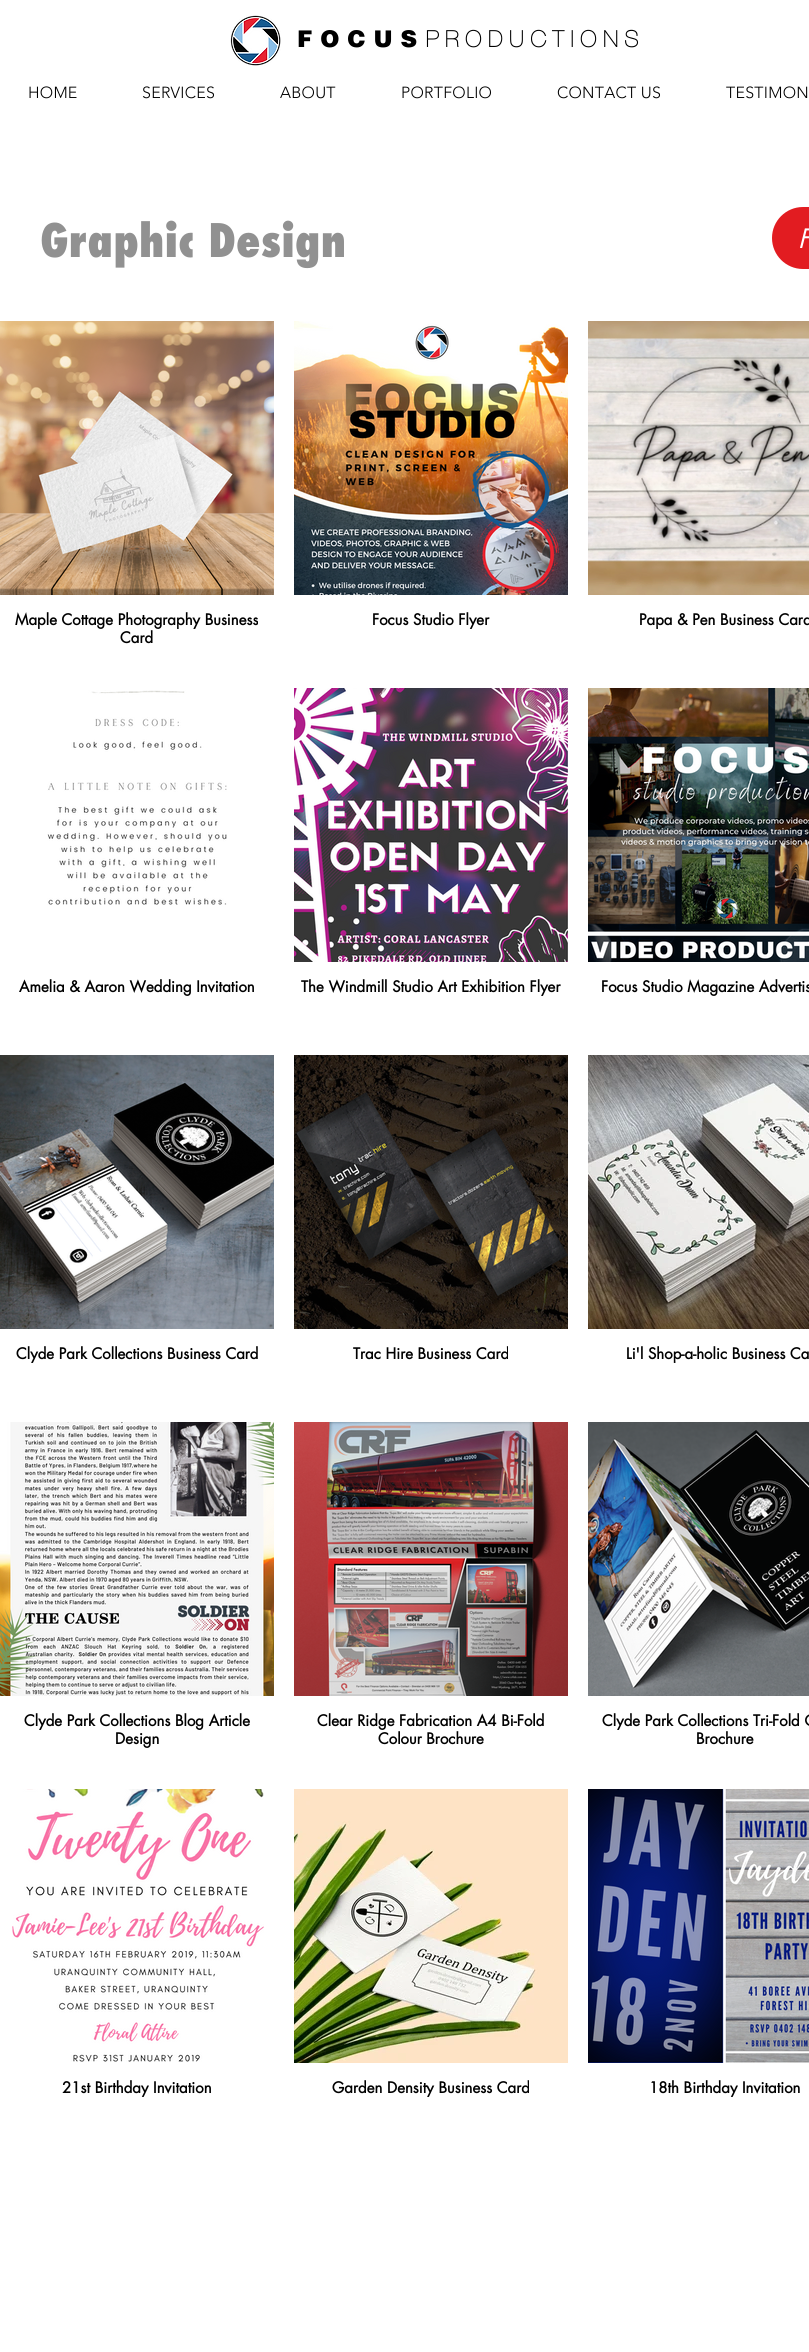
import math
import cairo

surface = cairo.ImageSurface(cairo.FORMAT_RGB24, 809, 2352)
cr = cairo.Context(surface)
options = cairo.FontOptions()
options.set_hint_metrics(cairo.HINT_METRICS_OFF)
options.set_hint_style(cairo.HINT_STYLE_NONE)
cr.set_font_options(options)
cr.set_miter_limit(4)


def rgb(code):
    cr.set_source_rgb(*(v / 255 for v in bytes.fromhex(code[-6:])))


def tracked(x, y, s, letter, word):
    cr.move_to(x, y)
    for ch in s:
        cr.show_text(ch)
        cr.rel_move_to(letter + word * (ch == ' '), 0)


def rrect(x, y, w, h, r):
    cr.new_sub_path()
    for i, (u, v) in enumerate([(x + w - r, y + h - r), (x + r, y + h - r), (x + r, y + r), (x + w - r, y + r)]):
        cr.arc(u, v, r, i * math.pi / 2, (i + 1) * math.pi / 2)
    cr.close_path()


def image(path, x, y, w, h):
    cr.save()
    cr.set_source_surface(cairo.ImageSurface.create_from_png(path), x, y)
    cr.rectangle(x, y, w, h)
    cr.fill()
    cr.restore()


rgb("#ffffff")
cr.paint()
image("img/1.png", 230, 15, 51, 51)
rgb("#e21c21")
rrect(772, 207, 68, 62, 31)
cr.fill()
image("img/2.png", 0, 321, 274, 274)
image("img/3.png", 294, 321, 274, 274)
image("img/4.png", 588, 321, 221, 274)
image("img/5.png", 47, 690, 180, 215)
image("img/6.png", 294, 688, 274, 274)
image("img/7.png", 588, 688, 221, 274)
image("img/8.png", 0, 1055, 274, 274)
image("img/9.png", 294, 1055, 274, 274)
image("img/10.png", 588, 1055, 221, 274)
image("img/11.png", 0, 1422, 274, 274)
image("img/12.png", 294, 1422, 274, 274)
image("img/13.png", 588, 1422, 221, 274)
image("img/14.png", 12, 1789, 252, 273)
image("img/15.png", 294, 1789, 274, 274)
image("img/16.png", 588, 1789, 221, 274)
cr.select_font_face("Helvetica Black")
cr.set_font_size(23)
rgb("#000000")
tracked(297, 47, "FOCUS", 8, 0)
cr.select_font_face("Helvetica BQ", cairo.FONT_SLANT_NORMAL, cairo.FONT_WEIGHT_BOLD)
tracked(425, 47, "PRODUCTIONS", 5.75, 0)
cr.select_font_face("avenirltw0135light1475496 Light")
cr.set_font_size(16)
for x, y, s in [
    (28, 98, "HOME"),
    (142, 98, "SERVICES"),
    (280, 98, "ABOUT"),
    (401, 98, "PORTFOLIO"),
    (557, 98, "CONTACT US"),
    (726, 98, "TESTIMON"),
]:
    tracked(x, y, s, 0.25, 0)
cr.select_font_face("Futura ExtraBold")
cr.set_font_size(45)
rgb("#919191")
cr.move_to(40, 257)
cr.show_text("Graphic Design")
cr.select_font_face("futura", cairo.FONT_SLANT_ITALIC)
cr.set_font_size(26)
rgb("#ffffff")
tracked(798, 248, "F", 1, 0)
cr.select_font_face("futura", cairo.FONT_SLANT_NORMAL, cairo.FONT_WEIGHT_BOLD)
cr.set_font_size(15)
rgb("#000000")
for x, y, s in [
    (15, 625, "Maple Cottage Photography Business"),
    (120, 643, "Card"),
    (372, 625, "Focus Studio Flyer"),
    (639, 625, "Papa & Pen Business Card"),
    (19, 992, "Amelia & Aaron Wedding Invitation"),
    (301, 992, "The Windmill Studio Art Exhibition Flyer"),
    (601, 992, "Focus Studio Magazine Advertis"),
    (16, 1359, "Clyde Park Collections Business Card"),
    (353, 1359, "Trac Hire Business Card"),
    (626, 1359, "Li'l Shop-a-holic Business Ca"),
    (24, 1726, "Clyde Park Collections Blog Article"),
    (115, 1744, "Design"),
    (317, 1726, "Clear Ridge Fabrication A4 Bi-Fold"),
    (378, 1744, "Colour Brochure"),
    (602, 1726, "Clyde Park Collections Tri-Fold C"),
    (696, 1744, "Brochure"),
    (62, 2093, "21st Birthday Invitation"),
    (332, 2093, "Garden Density Business Card"),
    (649, 2093, "18th Birthday Invitation"),
]:
    cr.move_to(x, y)
    cr.show_text(s)
surface.write_to_png("page.png")
